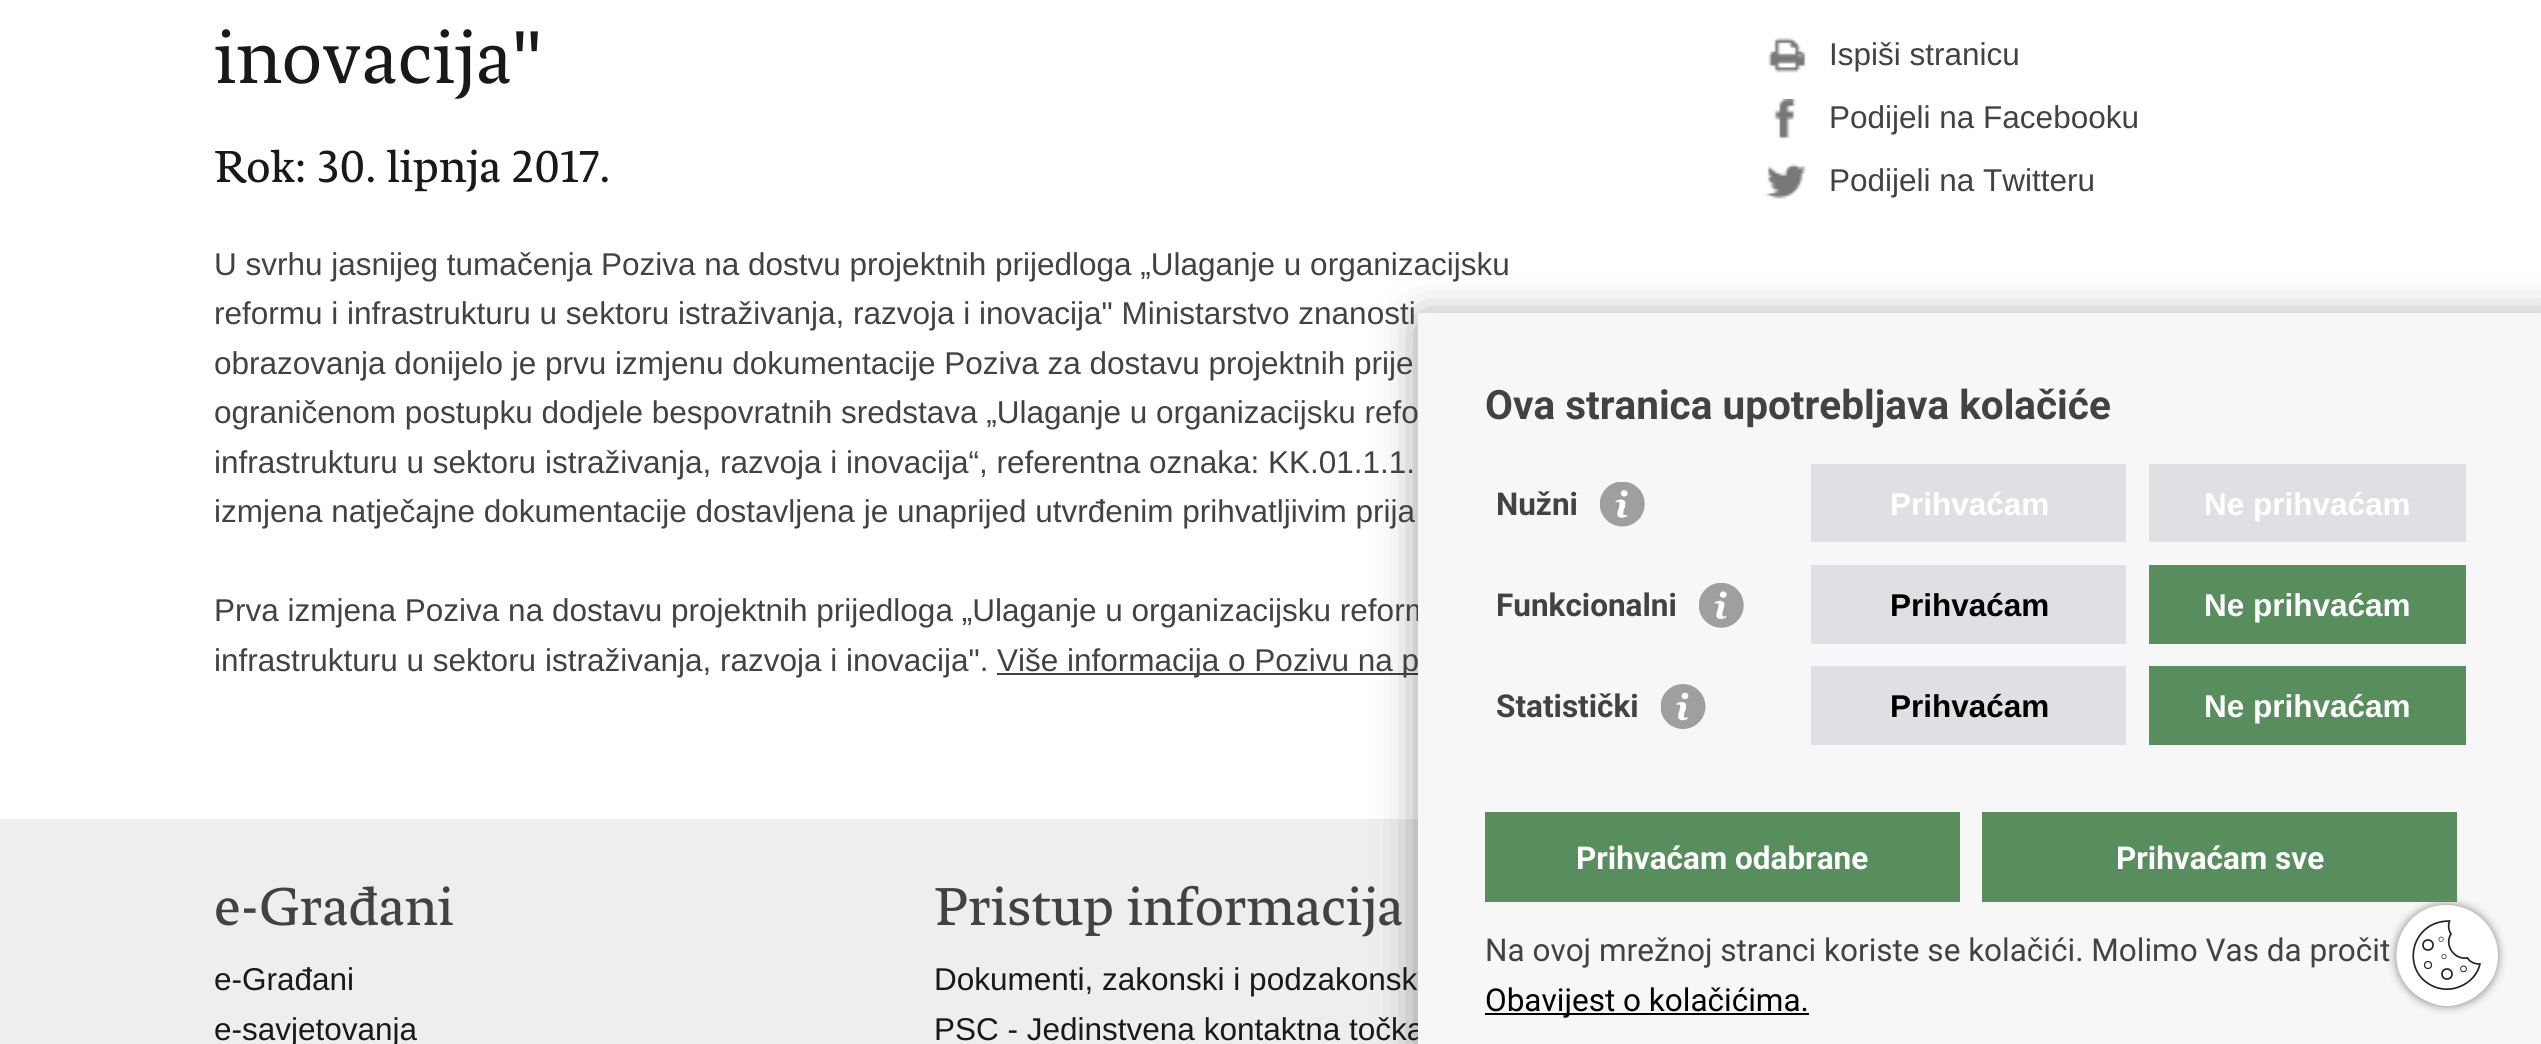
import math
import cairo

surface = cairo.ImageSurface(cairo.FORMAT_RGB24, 2541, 1044)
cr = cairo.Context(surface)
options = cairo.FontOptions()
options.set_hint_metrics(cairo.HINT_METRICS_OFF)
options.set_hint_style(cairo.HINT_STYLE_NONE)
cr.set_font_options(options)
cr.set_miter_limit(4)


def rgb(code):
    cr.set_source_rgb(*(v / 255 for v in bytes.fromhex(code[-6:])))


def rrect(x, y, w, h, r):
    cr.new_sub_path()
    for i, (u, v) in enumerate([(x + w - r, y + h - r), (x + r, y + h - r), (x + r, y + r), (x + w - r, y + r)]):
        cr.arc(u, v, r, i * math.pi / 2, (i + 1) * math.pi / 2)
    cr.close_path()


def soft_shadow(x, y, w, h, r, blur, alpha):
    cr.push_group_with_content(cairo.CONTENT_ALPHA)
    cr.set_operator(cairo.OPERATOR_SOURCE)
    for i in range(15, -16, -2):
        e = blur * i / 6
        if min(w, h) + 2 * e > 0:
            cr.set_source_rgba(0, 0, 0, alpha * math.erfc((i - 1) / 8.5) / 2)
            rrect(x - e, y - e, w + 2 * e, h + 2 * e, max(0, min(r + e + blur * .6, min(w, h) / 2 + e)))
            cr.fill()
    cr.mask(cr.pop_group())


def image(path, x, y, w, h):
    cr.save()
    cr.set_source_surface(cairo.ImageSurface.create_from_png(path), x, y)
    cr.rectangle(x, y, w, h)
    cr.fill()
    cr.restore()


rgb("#ffffff")
cr.paint()
rgb("#424242")
cr.rectangle(997, 673, 421, 2)
cr.fill()
image("img/1.png", 1768, 37, 38, 36)
image("img/2.png", 1774, 99, 22, 41)
image("img/3.png", 1766, 163, 41, 36)
rgb("#eeeeee")
cr.rectangle(0, 819, 1418, 225)
cr.fill()
rgb("#000000")
soft_shadow(1424, 324, 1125, 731, 0, 22.5, 0.5)
cr.select_font_face("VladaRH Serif")
cr.set_font_size(78.75)
rgb("#191919")
cr.move_to(214, 83)
cr.show_text("inovacija\"")
cr.select_font_face("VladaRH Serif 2")
cr.set_font_size(47.25)
cr.move_to(214, 182)
cr.show_text("Rok: 30. lipnja 2017.")
cr.select_font_face("Liberation Sans")
cr.set_font_size(31.5)
rgb("#424242")
for x, y, s in [
    (214, 275, "U svrhu jasnijeg tumačenja Poziva na dostvu projektnih prijedloga „Ulaganje u organizacijsku"),
    (214, 324, "reformu i infrastrukturu u sektoru istraživanja, razvoja i inovacija\" Ministarstvo znanosti"),
    (214, 374, "obrazovanja donijelo je prvu izmjenu dokumentacije Poziva za dostavu projektnih prije"),
    (214, 423, "ograničenom postupku dodjele bespovratnih sredstava „Ulaganje u organizacijsku refo"),
    (214, 473, "infrastrukturu u sektoru istraživanja, razvoja i inovacija“, referentna oznaka: KK.01.1.1."),
    (214, 522, "izmjena natječajne dokumentacije dostavljena je unaprijed utvrđenim prihvatljivim prija"),
    (214, 621, "Prva izmjena Poziva na dostavu projektnih prijedloga „Ulaganje u organizacijsku reform"),
    (214, 671, "infrastrukturu u sektoru istraživanja, razvoja i inovacija\"."),
    (997, 671, "Više informacija o Pozivu na p"),
    (1829, 65, "Ispiši stranicu"),
    (1829, 128, "Podijeli na Facebooku"),
    (1829, 191, "Podijeli na Twitteru"),
]:
    cr.move_to(x, y)
    cr.show_text(s)
cr.select_font_face("VladaRH Serif 2")
cr.set_font_size(56.25)
cr.move_to(214, 925)
cr.show_text("e-Građani")
cr.select_font_face("Liberation Sans")
cr.set_font_size(31.5)
rgb("#191919")
cr.move_to(214, 990)
cr.show_text("e-Građani")
cr.move_to(214, 1040)
cr.show_text("e-savjetovanja")
cr.select_font_face("VladaRH Serif 2")
cr.set_font_size(56.25)
rgb("#424242")
cr.move_to(934, 925)
cr.show_text("Pristup informacija")
cr.select_font_face("Liberation Sans")
cr.set_font_size(31.5)
rgb("#191919")
cr.move_to(934, 990)
cr.show_text("Dokumenti, zakonski i podzakonsk")
cr.move_to(934, 1040)
cr.show_text("PSC - Jedinstvena kontaktna točka")
rgb("#f7f7f7")
cr.rectangle(1418, 313, 1123, 731)
cr.fill()
cr.select_font_face("Roboto", cairo.FONT_SLANT_NORMAL, cairo.FONT_WEIGHT_BOLD)
cr.set_font_size(40.5)
rgb("#424242")
cr.move_to(1485, 419)
cr.show_text("Ova stranica upotrebljava kolačiće")
cr.set_font_size(31.5)
cr.move_to(1496, 515)
cr.show_text("Nužni")
image("img/4.png", 1600, 482, 45, 45)
rgb("#e0e0e4")
cr.rectangle(1811, 464, 315, 78)
cr.fill()
cr.select_font_face("Liberation Sans", cairo.FONT_SLANT_NORMAL, cairo.FONT_WEIGHT_BOLD)
rgb("#ffffff")
cr.move_to(1890, 515)
cr.show_text("Prihvaćam")
rgb("#e0e0e4")
cr.rectangle(2149, 464, 317, 78)
cr.fill()
rgb("#ffffff")
cr.move_to(2204, 515)
cr.show_text("Ne prihvaćam")
cr.select_font_face("Roboto", cairo.FONT_SLANT_NORMAL, cairo.FONT_WEIGHT_BOLD)
rgb("#424242")
cr.move_to(1496, 616)
cr.show_text("Funkcionalni")
image("img/5.png", 1699, 583, 45, 45)
rgb("#e0e0e4")
cr.rectangle(1811, 565, 315, 79)
cr.fill()
cr.select_font_face("Liberation Sans", cairo.FONT_SLANT_NORMAL, cairo.FONT_WEIGHT_BOLD)
rgb("#000000")
cr.move_to(1890, 616)
cr.show_text("Prihvaćam")
rgb("#588e5e")
cr.rectangle(2149, 565, 317, 79)
cr.fill()
rgb("#ffffff")
cr.move_to(2204, 616)
cr.show_text("Ne prihvaćam")
cr.select_font_face("Roboto", cairo.FONT_SLANT_NORMAL, cairo.FONT_WEIGHT_BOLD)
rgb("#424242")
cr.move_to(1496, 717)
cr.show_text("Statistički")
image("img/6.png", 1661, 684, 45, 45)
rgb("#e0e0e4")
cr.rectangle(1811, 666, 315, 79)
cr.fill()
cr.select_font_face("Liberation Sans", cairo.FONT_SLANT_NORMAL, cairo.FONT_WEIGHT_BOLD)
rgb("#000000")
cr.move_to(1890, 717)
cr.show_text("Prihvaćam")
rgb("#588e5e")
cr.rectangle(2149, 666, 317, 79)
cr.fill()
rgb("#ffffff")
cr.move_to(2204, 717)
cr.show_text("Ne prihvaćam")
rgb("#588e5e")
cr.rectangle(1485, 812, 475, 90)
cr.fill()
cr.select_font_face("Roboto", cairo.FONT_SLANT_NORMAL, cairo.FONT_WEIGHT_BOLD)
rgb("#ffffff")
cr.move_to(1576, 869)
cr.show_text("Prihvaćam odabrane")
rgb("#588e5e")
cr.rectangle(1982, 812, 475, 90)
cr.fill()
rgb("#ffffff")
cr.move_to(2116, 869)
cr.show_text("Prihvaćam sve")
cr.select_font_face("Roboto")
rgb("#424242")
cr.move_to(1485, 961)
cr.show_text("Na ovoj mrežnoj stranci koriste se kolačići. Molimo Vas da pročit")
rgb("#000000")
cr.rectangle(1485, 1013, 324, 2)
cr.fill()
cr.move_to(1485, 1011)
cr.show_text("Obavijest o kolačićima.")
rgb("#858585")
soft_shadow(2396, 905, 102, 101, 50.5, 4.5, 1)
rgb("#ffffff")
cr.new_path()
cr.move_to(2446, 905)
cr.curve_to(2483, 905, 2508, 941, 2494, 975)
cr.curve_to(2490, 984, 2483, 991, 2475, 997)
cr.curve_to(2467, 1002, 2457, 1006, 2447, 1006)
cr.curve_to(2437, 1006, 2427, 1002, 2419, 997)
cr.curve_to(2377, 969, 2398, 905, 2446, 905)
cr.close_path()
cr.fill()
cr.new_path()
cr.move_to(2479.5, 964)
cr.curve_to(2474.5, 964, 2470, 962, 2467.5, 958)
cr.curve_to(2454, 960, 2444, 945, 2451, 934)
cr.curve_to(2448.5, 930, 2448, 925.5, 2449.5, 921)
cr.curve_to(2409, 921, 2400, 973.5, 2435, 987)
cr.curve_to(2443, 990, 2452, 990, 2460, 986.5)
cr.curve_to(2470, 982.5, 2477.5, 974.5, 2480, 964)
cr.close_path()
rgb("#222323")
cr.set_line_width(1.7)
cr.stroke()
cr.arc(2428, 945, 5, 0, 2 * math.pi)
cr.stroke()
cr.arc(2447, 974, 5, 0, 2 * math.pi)
cr.stroke()
cr.arc(2428, 965, 3.5, 0, 2 * math.pi)
cr.set_line_width(1.2)
cr.stroke()
cr.arc(2463.5, 968.9, 2.9, 0, 2 * math.pi)
cr.set_line_width(1)
cr.stroke()
cr.arc(2444, 956.6, 2.2, 0, 2 * math.pi)
cr.set_line_width(0.7)
cr.stroke()
cr.arc(2441.1, 939.2, 2.2, 0, 2 * math.pi)
cr.stroke()
surface.write_to_png("page.png")
